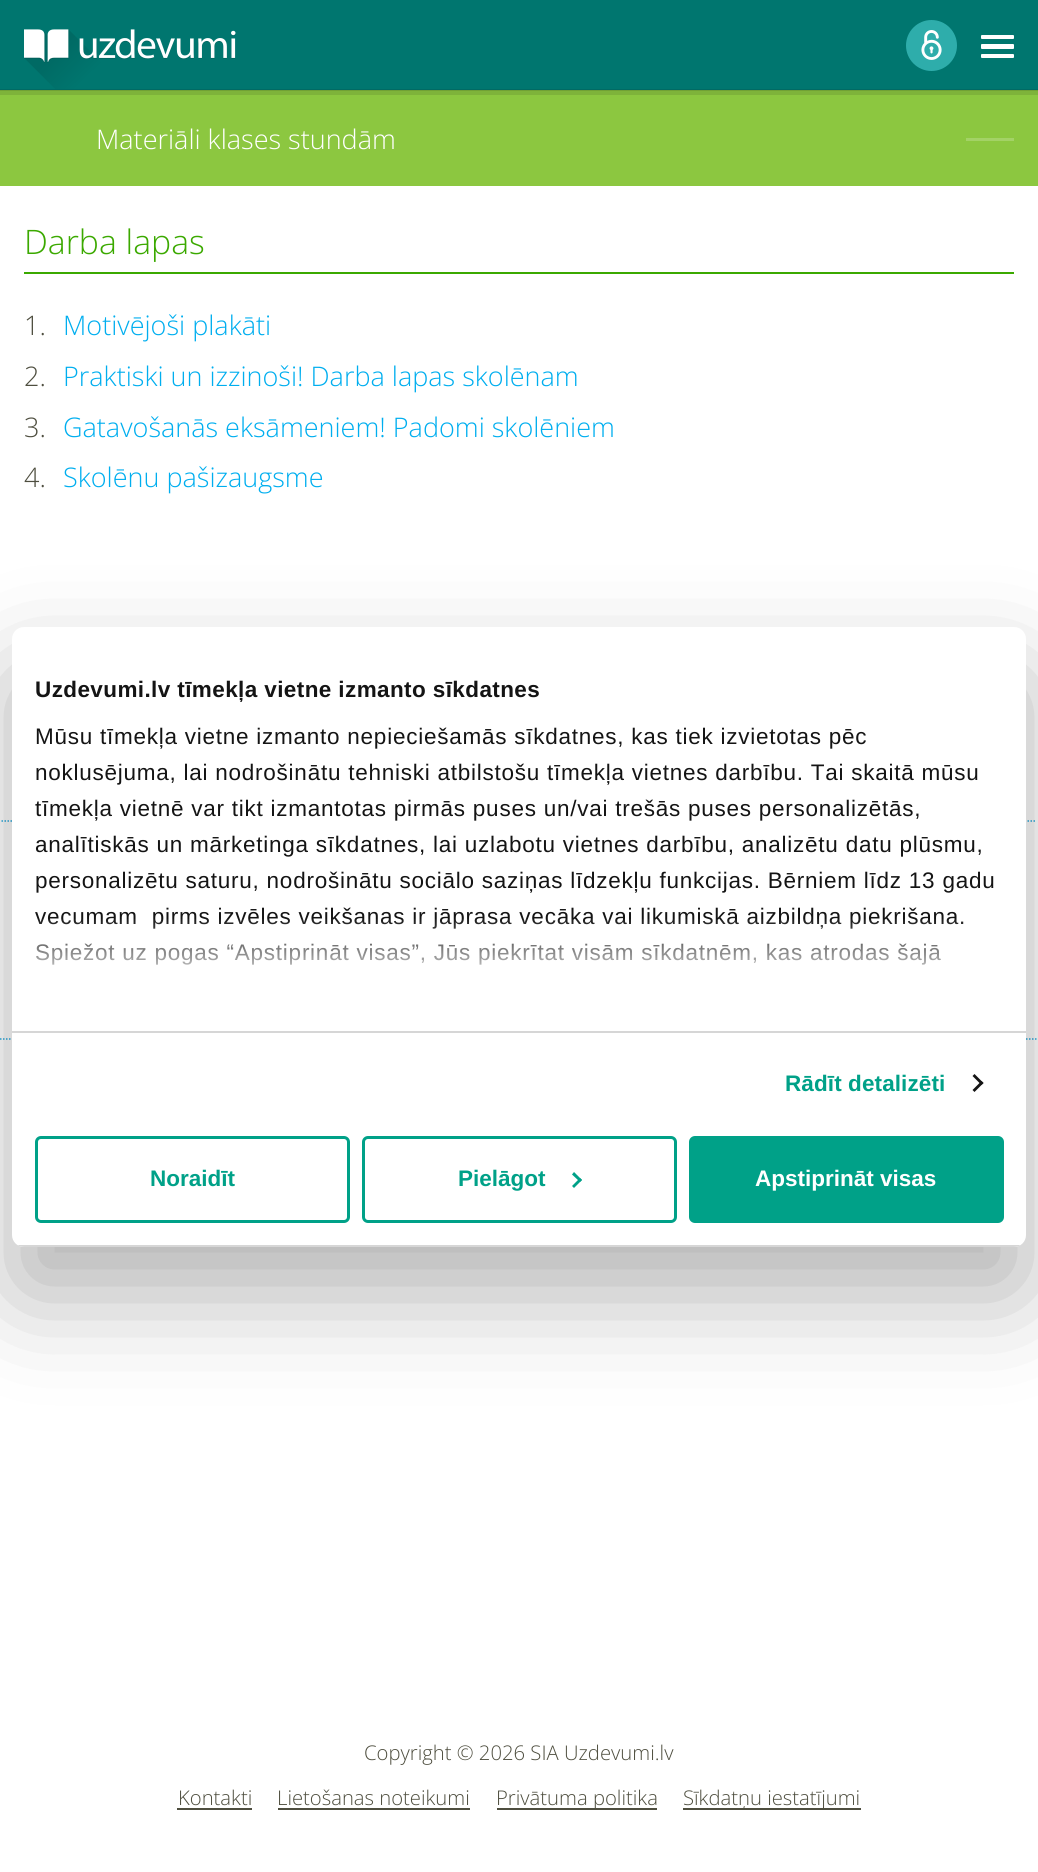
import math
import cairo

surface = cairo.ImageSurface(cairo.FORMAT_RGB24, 1038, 1872)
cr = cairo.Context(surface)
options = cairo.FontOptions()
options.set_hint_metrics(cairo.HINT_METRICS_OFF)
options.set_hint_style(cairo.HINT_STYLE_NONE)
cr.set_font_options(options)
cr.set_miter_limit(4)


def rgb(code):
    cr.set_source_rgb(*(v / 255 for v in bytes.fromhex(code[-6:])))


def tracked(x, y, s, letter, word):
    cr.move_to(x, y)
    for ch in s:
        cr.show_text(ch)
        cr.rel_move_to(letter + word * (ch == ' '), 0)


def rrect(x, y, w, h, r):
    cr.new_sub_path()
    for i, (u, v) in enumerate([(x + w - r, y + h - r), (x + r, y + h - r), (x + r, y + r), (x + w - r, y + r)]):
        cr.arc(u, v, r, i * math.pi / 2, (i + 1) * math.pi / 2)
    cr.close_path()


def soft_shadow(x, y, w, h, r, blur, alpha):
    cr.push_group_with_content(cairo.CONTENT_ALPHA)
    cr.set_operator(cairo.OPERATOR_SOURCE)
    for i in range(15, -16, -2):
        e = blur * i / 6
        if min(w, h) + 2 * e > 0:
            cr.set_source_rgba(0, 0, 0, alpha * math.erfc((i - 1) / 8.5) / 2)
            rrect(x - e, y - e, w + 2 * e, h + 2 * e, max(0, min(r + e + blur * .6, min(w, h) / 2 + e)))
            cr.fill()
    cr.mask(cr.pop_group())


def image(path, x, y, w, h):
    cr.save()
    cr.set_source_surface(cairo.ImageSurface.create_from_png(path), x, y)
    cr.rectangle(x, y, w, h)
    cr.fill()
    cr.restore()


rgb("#ffffff")
cr.paint()
for x, y, w, h, color in [
    (0, 91, 1038, 4, "#7eb33a"),
    (0, 90, 1038, 1, "#71a134"),
    (0, 0, 1038, 89, "#00766f"),
    (0, 89, 1038, 1, "#006a64"),
]:
    rgb(color)
    cr.rectangle(x, y, w, h)
    cr.fill()
image("img/1.png", 24, 29, 212, 60)
rgb("#2eadab")
cr.arc(931.5, 45.5, 25.5, 0, 2 * math.pi)
cr.fill()
image("img/2.png", 921, 30, 21, 30)
rgb("#ffffff")
rrect(981, 35, 33, 4, 1)
cr.fill()
rrect(981, 44, 33, 5, 1)
cr.fill()
rrect(981, 54, 33, 4, 1)
cr.fill()
for x, y, w, h, color in [
    (0, 95, 1038, 91, "#8cc740"),
    (966, 138, 48, 3, "#a3d266"),
    (24, 272, 990, 2, "#3ba900"),
]:
    rgb(color)
    cr.rectangle(x, y, w, h)
    cr.fill()
cr.new_path()
cr.move_to(1.5, 821)
cr.line_to(1036.5, 821)
rgb("#29abe0")
cr.set_line_width(1.5)
cr.set_dash([1.5, 1.5])
cr.stroke()
cr.new_path()
cr.move_to(0, 1039)
cr.line_to(369, 1039)
cr.stroke()
cr.new_path()
cr.move_to(669, 1039)
cr.line_to(1038, 1039)
cr.stroke()
for x, y, w, h, color in [
    (177, 1808, 75, 2, "#4e4e3f"),
    (278, 1808, 192, 2, "#4e4e3f"),
    (497, 1808, 160, 2, "#4e4e3f"),
    (683, 1808, 178, 2, "#4e4e3f"),
]:
    rgb(color)
    cr.rectangle(x, y, w, h)
    cr.fill()
rgb("#000000")
soft_shadow(12, 675, 1014, 620, 12, 51, 0.3)
rgb("#ffffff")
rrect(12, 627, 1014, 620, 12)
cr.fill()
rgb("#d6d6d6")
cr.rectangle(12, 1031, 1014, 2)
cr.fill()
rgb("#141414")
cr.new_path()
cr.move_to(974.5, 1074)
cr.line_to(983.5, 1083)
cr.line_to(981.5, 1085)
cr.line_to(972.5, 1076)
cr.close_path()
cr.fill()
cr.new_path()
cr.move_to(981.5, 1081)
cr.line_to(983.5, 1083)
cr.line_to(974.5, 1092)
cr.line_to(972.5, 1090)
cr.close_path()
cr.fill()
cr.save()
rrect(12, 627, 1014, 620, 12)
cr.clip()
rgb("#d6d6d6")
cr.rectangle(12, 1245, 1014, 2)
cr.fill()
cr.restore()
rrect(36.5, 1137.5, 312, 84, 4.5)
rgb("#00a188")
cr.set_line_width(3)
cr.set_dash([])
cr.stroke()
rrect(363.5, 1137.5, 312, 84, 4.5)
cr.stroke()
cr.new_path()
cr.move_to(574, 1172)
cr.line_to(582, 1180)
cr.line_to(580, 1182)
cr.line_to(572, 1174.5)
cr.close_path()
cr.fill()
cr.new_path()
cr.move_to(580, 1178)
cr.line_to(582, 1180)
cr.line_to(574, 1188)
cr.line_to(572, 1186)
cr.close_path()
cr.fill()
rrect(690.5, 1137.5, 312, 84, 4.5)
cr.fill_preserve()
cr.stroke()
cr.select_font_face("Open Sans Light")
cr.set_font_size(27)
rgb("#ffffff")
cr.move_to(96, 149)
cr.show_text("Materiāli klases stundām")
cr.set_font_size(33.75)
rgb("#3ba900")
cr.move_to(24, 254)
cr.show_text("Darba lapas")
cr.set_font_size(27)
rgb("#4e4e3f")
cr.move_to(24, 335)
cr.show_text("1.")
rgb("#00aeef")
cr.move_to(63, 335)
cr.show_text("Motivējoši plakāti")
rgb("#4e4e3f")
cr.move_to(24, 386)
cr.show_text("2.")
rgb("#00aeef")
cr.move_to(63, 386)
cr.show_text("Praktiski un izzinoši! Darba lapas skolēnam")
rgb("#4e4e3f")
cr.move_to(24, 437)
cr.show_text("3.")
rgb("#00aeef")
cr.move_to(63, 437)
cr.show_text("Gatavošanās eksāmeniem! Padomi skolēniem")
rgb("#4e4e3f")
cr.move_to(24, 487)
cr.show_text("4.")
rgb("#00aeef")
cr.move_to(63, 487)
cr.show_text("Skolēnu pašizaugsme")
cr.set_font_size(20.25)
rgb("#4e4e3f")
for x, y, s in [
    (364, 1760, "Copyright © 2026 SIA Uzdevumi.lv"),
    (178, 1805, "Kontakti"),
    (277, 1805, "Lietošanas noteikumi"),
    (496, 1805, "Privātuma politika"),
    (683, 1805, "Sīkdatņu iestatījumi"),
]:
    cr.move_to(x, y)
    cr.show_text(s)
cr.select_font_face("Liberation Sans", cairo.FONT_SLANT_NORMAL, cairo.FONT_WEIGHT_BOLD)
cr.set_font_size(22.5)
rgb("#141414")
tracked(35, 697, "Uzdevumi.lv tīmekļa vietne izmanto sīkdatnes", 0.4, 0)
cr.select_font_face("Liberation Sans")
for x, y, s in [
    (35, 744, "Mūsu tīmekļa vietne izmanto nepieciešamās sīkdatnes, kas tiek izvietotas pēc"),
    (35, 780, "noklusējuma, lai nodrošinātu tehniski atbilstošu tīmekļa vietnes darbību. Tai skaitā mūsu"),
    (35, 816, "tīmekļa vietnē var tikt izmantotas pirmās puses un/vai trešās puses personalizētās,"),
    (35, 852, "analītiskās un mārketinga sīkdatnes, lai uzlabotu vietnes darbību, analizētu datu plūsmu,"),
    (35, 888, "personalizētu saturu, nodrošinātu sociālo saziņas līdzekļu funkcijas. Bērniem līdz 13 gadu"),
    (35, 924, "vecumam  pirms izvēles veikšanas ir jāprasa vecāka vai likumiskā aizbildņa piekrišana."),
    (35, 960, "Spiežot uz pogas “Apstiprināt visas”, Jūs piekrītat visām sīkdatnēm, kas atrodas šajā"),
]:
    tracked(x, y, s, 0.75, 0)
gradient = cairo.LinearGradient(509, 1030, 509, 917)
gradient.add_color_stop_rgba(0, 1, 1, 1, 1)
gradient.add_color_stop_rgba(0.5, 1, 1, 1, 0.8)
gradient.add_color_stop_rgba(1, 1, 1, 1, 0)
cr.set_source(gradient)
cr.rectangle(35, 919, 928, 46)
cr.fill()
cr.select_font_face("Liberation Sans", cairo.FONT_SLANT_NORMAL, cairo.FONT_WEIGHT_BOLD)
rgb("#00a188")
tracked(785, 1091, "Rādīt detalizēti", 0.1, 0)
cr.move_to(150, 1186)
cr.show_text("Noraidīt")
cr.move_to(458, 1186)
cr.show_text("Pielāgot")
rgb("#ffffff")
cr.move_to(755, 1186)
cr.show_text("Apstiprināt visas")
surface.write_to_png("page.png")
